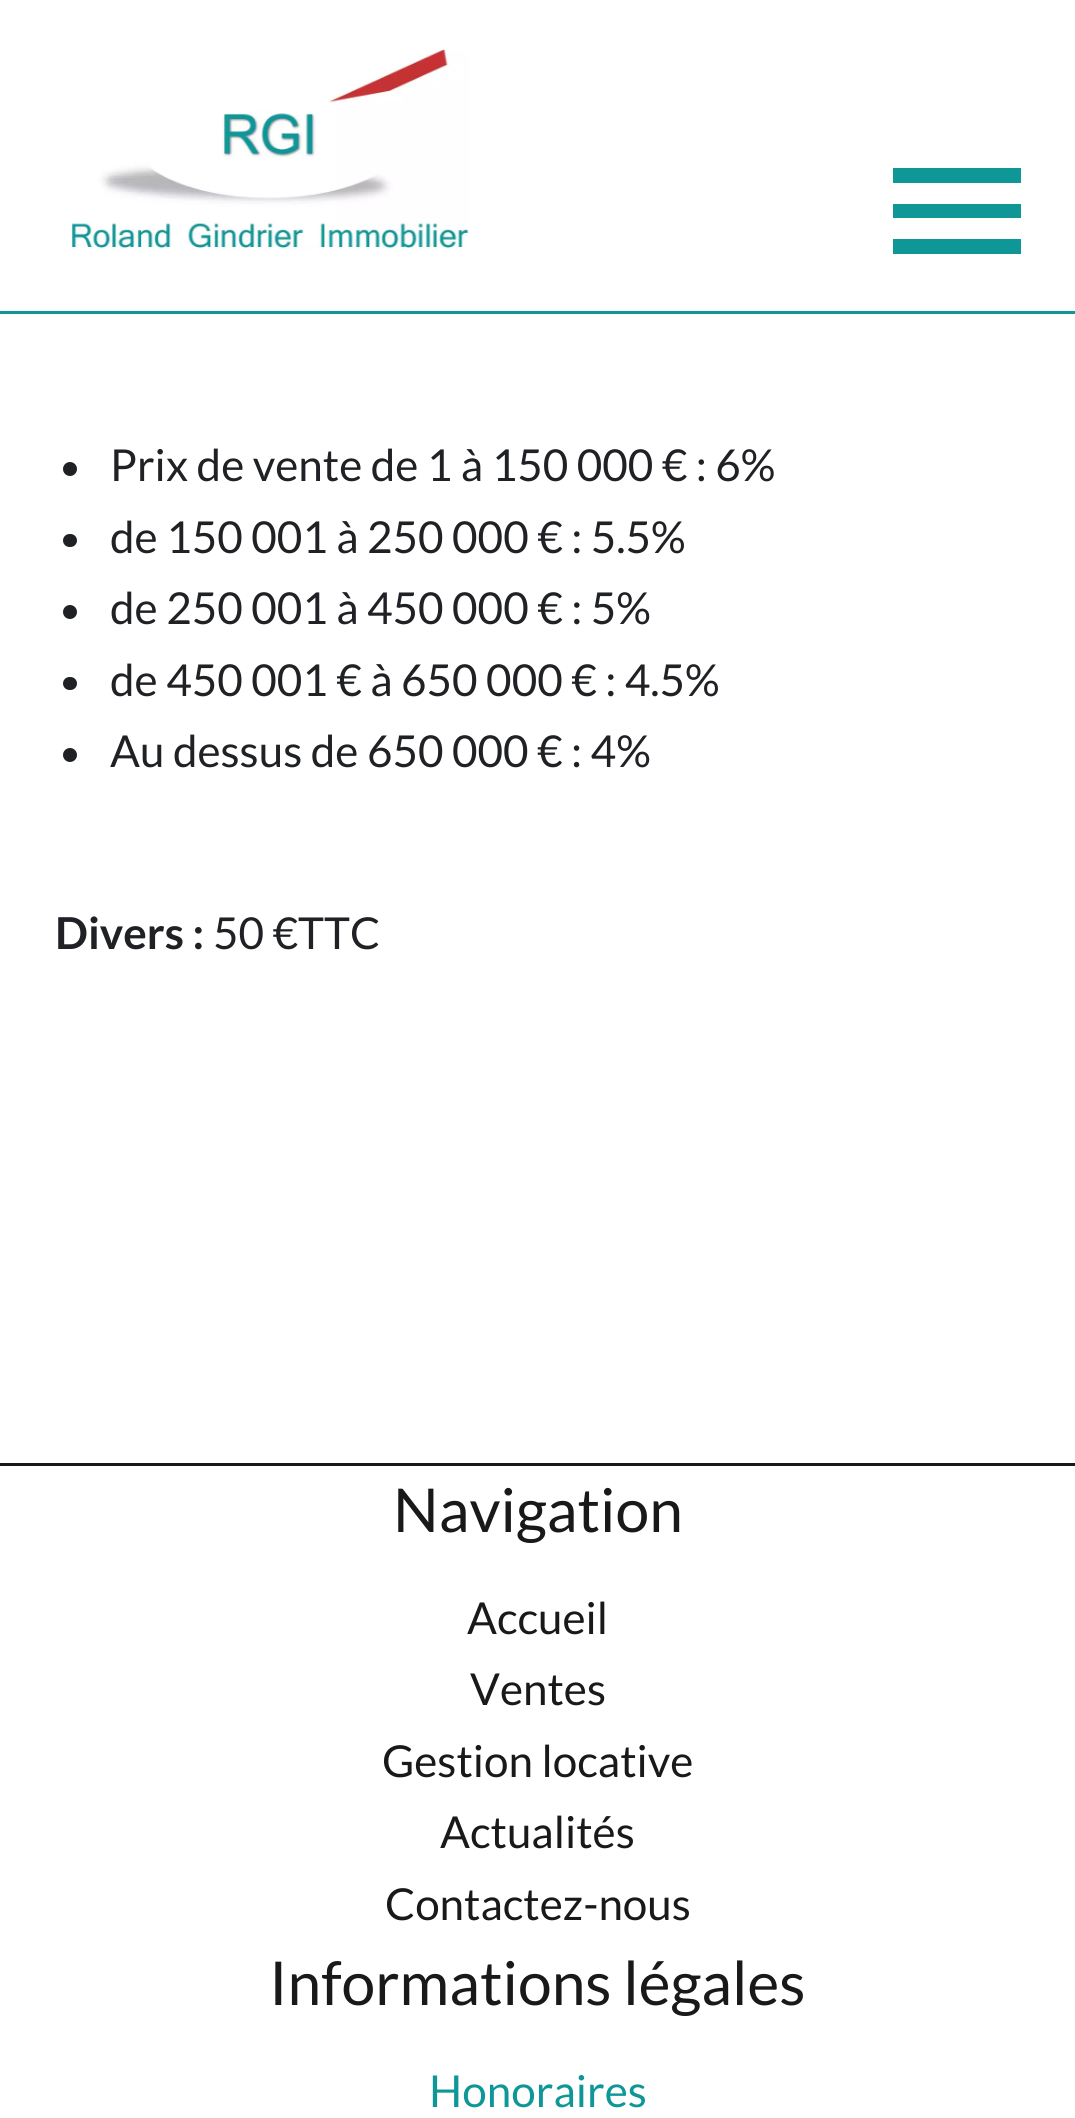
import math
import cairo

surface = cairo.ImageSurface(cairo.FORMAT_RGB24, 1075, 2118)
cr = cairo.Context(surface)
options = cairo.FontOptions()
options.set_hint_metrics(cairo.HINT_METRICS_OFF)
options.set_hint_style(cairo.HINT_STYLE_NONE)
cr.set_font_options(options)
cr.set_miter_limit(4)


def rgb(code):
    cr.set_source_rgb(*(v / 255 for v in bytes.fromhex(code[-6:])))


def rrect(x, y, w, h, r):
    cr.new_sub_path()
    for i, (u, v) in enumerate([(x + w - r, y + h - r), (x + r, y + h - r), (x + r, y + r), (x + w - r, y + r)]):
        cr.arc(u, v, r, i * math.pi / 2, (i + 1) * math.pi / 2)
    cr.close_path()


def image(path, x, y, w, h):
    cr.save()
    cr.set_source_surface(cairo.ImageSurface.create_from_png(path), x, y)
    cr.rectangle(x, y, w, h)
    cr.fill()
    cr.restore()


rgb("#ffffff")
cr.paint()
image("img/1.png", 70, 49, 399, 201)
rgb("#0f9798")
cr.rectangle(0, 311, 1075, 3)
cr.fill()
cr.new_path()
cr.move_to(893, 168)
cr.line_to(1021, 168)
cr.line_to(1021, 183)
cr.line_to(893, 183)
cr.close_path()
cr.move_to(893, 204)
cr.line_to(1021, 204)
cr.line_to(1021, 218)
cr.line_to(893, 218)
cr.close_path()
cr.move_to(893, 239)
cr.line_to(1021, 239)
cr.line_to(1021, 254)
cr.line_to(893, 254)
cr.close_path()
cr.fill()
rgb("#1f2124")
cr.arc(70, 469, 7, 0, 2 * math.pi)
cr.fill()
rrect(63, 534, 14, 13, 6.5)
cr.fill()
cr.arc(70, 612, 7, 0, 2 * math.pi)
cr.fill()
rrect(63, 677, 14, 13, 6.5)
cr.fill()
cr.arc(70, 755, 7, 0, 2 * math.pi)
cr.fill()
rgb("#191919")
cr.rectangle(0, 1463, 1075, 3)
cr.fill()
cr.select_font_face("Lato")
cr.set_font_size(44)
rgb("#1f2124")
for x, y, s in [
    (110, 481, "Prix de vente de 1 à 150 000 € : 6%"),
    (110, 553, "de 150 001 à 250 000 € : 5.5%"),
    (110, 624, "de 250 001 à 450 000 € : 5%"),
    (110, 696, "de 450 001 € à 650 000 € : 4.5%"),
    (110, 767, "Au dessus de 650 000 € : 4%"),
]:
    cr.move_to(x, y)
    cr.show_text(s)
cr.select_font_face("Lato", cairo.FONT_SLANT_NORMAL, cairo.FONT_WEIGHT_BOLD)
cr.move_to(55, 949)
cr.show_text("Divers :")
cr.select_font_face("Lato")
cr.move_to(213, 949)
cr.show_text("50 €TTC")
cr.set_font_size(60.5)
rgb("#191919")
cr.move_to(393, 1532)
cr.show_text("Navigation")
cr.set_font_size(44)
for x, y, s in [
    (467, 1634, "Accueil"),
    (470, 1705, "Ventes"),
    (382, 1777, "Gestion locative"),
    (440, 1848, "Actualités"),
    (385, 1920, "Contactez-nous"),
]:
    cr.move_to(x, y)
    cr.show_text(s)
cr.set_font_size(60.5)
cr.move_to(269, 2005)
cr.show_text("Informations légales")
cr.set_font_size(44)
rgb("#0f9798")
cr.move_to(429, 2107)
cr.show_text("Honoraires")
surface.write_to_png("page.png")
